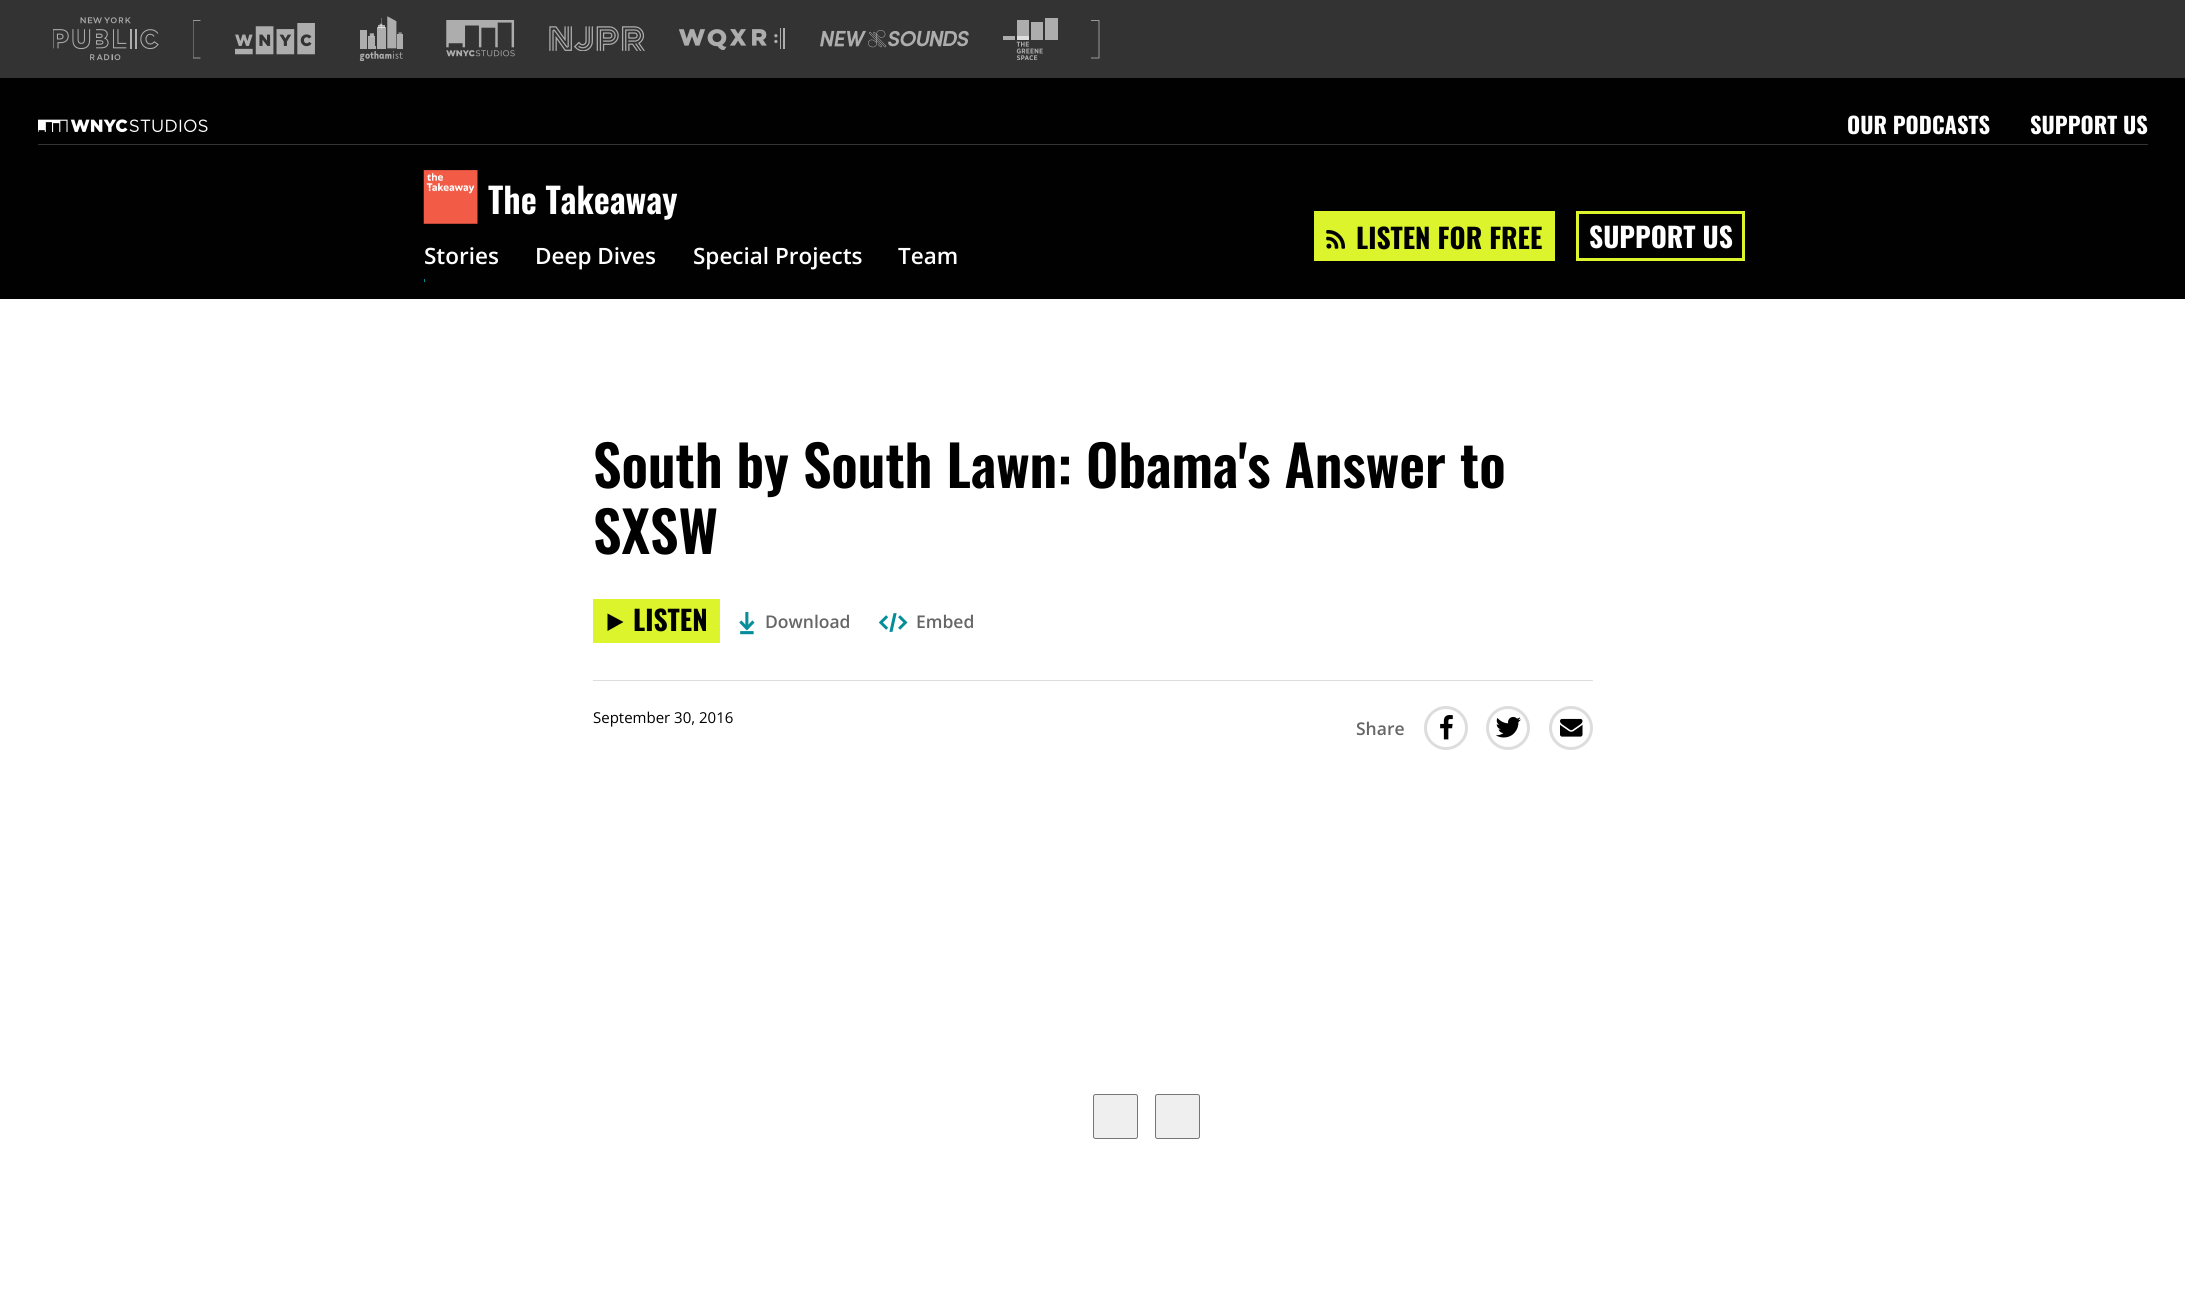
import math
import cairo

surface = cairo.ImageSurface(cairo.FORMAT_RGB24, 2185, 1293)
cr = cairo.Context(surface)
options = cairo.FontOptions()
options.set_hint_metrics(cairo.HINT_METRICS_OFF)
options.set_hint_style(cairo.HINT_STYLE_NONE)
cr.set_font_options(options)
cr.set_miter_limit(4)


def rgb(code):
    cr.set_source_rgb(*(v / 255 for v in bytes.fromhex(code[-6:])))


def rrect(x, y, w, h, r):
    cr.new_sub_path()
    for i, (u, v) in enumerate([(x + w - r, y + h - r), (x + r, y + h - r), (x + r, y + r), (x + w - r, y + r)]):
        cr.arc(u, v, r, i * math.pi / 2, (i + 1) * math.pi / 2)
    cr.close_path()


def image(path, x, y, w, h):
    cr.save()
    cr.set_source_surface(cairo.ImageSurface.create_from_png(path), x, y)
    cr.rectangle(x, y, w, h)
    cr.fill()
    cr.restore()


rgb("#ffffff")
cr.paint()
rgb("#333333")
cr.rectangle(0, 0, 2185, 78)
cr.fill()
image("img/1.png", 53, 17, 106, 44)
cr.save()
cr.rectangle(193, 20, 8, 39)
cr.clip()
rgb("#999999")
cr.new_path()
cr.move_to(193.5, 58.5)
cr.line_to(192.5, 58.5)
cr.line_to(192.5, 20)
cr.line_to(200.5, 20)
cr.line_to(200.5, 21)
cr.line_to(193.5, 21)
cr.line_to(193.5, 57.5)
cr.line_to(200.5, 57.5)
cr.line_to(200.5, 58.5)
cr.close_path()
cr.fill()
cr.restore()
image("img/2.png", 235, 23, 80, 32)
image("img/3.png", 359, 16, 44, 45)
image("img/4.png", 446, 20, 69, 37)
image("img/5.png", 549, 26, 96, 25)
image("img/6.png", 679, 28, 106, 22)
image("img/7.png", 820, 30, 149, 18)
image("img/8.png", 1003, 18, 55, 42)
rgb("#999999")
cr.new_path()
cr.move_to(1098.5, 20)
cr.line_to(1099.5, 20)
cr.line_to(1099.5, 58.5)
cr.line_to(1091, 58.5)
cr.line_to(1091, 57.5)
cr.line_to(1098.5, 57.5)
cr.line_to(1098.5, 21)
cr.line_to(1091, 21)
cr.line_to(1091, 20)
cr.close_path()
cr.fill()
rgb("#010101")
cr.rectangle(0, 78, 2185, 221)
cr.fill()
image("img/9.png", 38, 119, 170, 14)
rgb("#343434")
cr.rectangle(38, 144, 2110, 1)
cr.fill()
image("img/10.png", 423, 170, 55, 54)
rgb("#dcf42c")
cr.rectangle(1314, 211, 241, 50)
cr.fill()
image("img/11.png", 1326, 230, 19, 19)
cr.rectangle(1577.5, 212.5, 166, 47)
cr.set_line_width(3)
cr.stroke()
rgb("#048d99")
cr.rectangle(424, 279, 1, 3)
cr.fill()
rgb("#dcf42c")
cr.rectangle(593, 599, 127, 44)
cr.fill()
rgb("#000000")
cr.set_fill_rule(cairo.FILL_RULE_EVEN_ODD)
cr.new_path()
cr.move_to(623.5, 622)
cr.line_to(607.5, 631)
cr.line_to(607.5, 613.5)
cr.close_path()
cr.fill()
image("img/12.png", 739, 612, 16, 23)
image("img/13.png", 879, 613, 29, 19)
rgb("#dddddd")
cr.rectangle(593, 680, 1000, 1)
cr.fill()
cr.arc(1446, 728, 20.5, 0, 2 * math.pi)
cr.stroke()
image("img/14.png", 1440, 715, 13, 25)
cr.arc(1508, 728, 20.5, 0, 2 * math.pi)
cr.stroke()
image("img/15.png", 1496, 717, 25, 21)
cr.arc(1571, 728, 20.5, 0, 2 * math.pi)
cr.stroke()
image("img/16.png", 1560, 718, 23, 19)
rgb("#efefef")
rrect(1093.5, 1094.5, 44, 44, 2)
cr.fill_preserve()
rgb("#767676")
cr.set_line_width(1)
cr.stroke()
rgb("#efefef")
rrect(1155.5, 1094.5, 44, 44, 2)
cr.fill_preserve()
rgb("#767676")
cr.stroke()
cr.select_font_face("Oswald", cairo.FONT_SLANT_NORMAL, cairo.FONT_WEIGHT_BOLD)
cr.set_font_size(22.5)
rgb("#ffffff")
cr.move_to(1847, 134)
cr.show_text("OUR PODCASTS")
cr.move_to(2030, 134)
cr.show_text("SUPPORT US")
cr.select_font_face("Oswald SemiBold")
cr.set_font_size(35)
cr.move_to(488, 214)
cr.show_text("The Takeaway")
cr.select_font_face("Oswald", cairo.FONT_SLANT_NORMAL, cairo.FONT_WEIGHT_BOLD)
cr.set_font_size(27.5)
rgb("#000000")
cr.move_to(1356, 249)
cr.show_text("LISTEN FOR FREE")
rgb("#ffffff")
cr.move_to(1589, 248)
cr.show_text("SUPPORT US")
cr.select_font_face("Open Sans SemiBold")
cr.set_font_size(22.5)
for x, y, s in [
    (424, 264, "Stories"),
    (535, 264, "Deep Dives"),
    (693, 264, "Special Projects"),
    (898, 264, "Team"),
]:
    cr.move_to(x, y)
    cr.show_text(s)
cr.select_font_face("Oswald SemiBold")
cr.set_font_size(56.25)
rgb("#000000")
cr.move_to(593, 488)
cr.show_text("South by South Lawn: Obama's Answer to")
cr.move_to(593, 554)
cr.show_text("SXSW")
cr.select_font_face("Oswald", cairo.FONT_SLANT_NORMAL, cairo.FONT_WEIGHT_BOLD)
cr.set_font_size(27.5)
cr.move_to(633, 631)
cr.show_text("LISTEN")
cr.select_font_face("Open Sans SemiBold")
cr.set_font_size(17.5)
rgb("#666666")
cr.move_to(765, 628)
cr.show_text("Download")
cr.move_to(916, 628)
cr.show_text("Embed")
cr.select_font_face("Open Sans")
cr.set_font_size(15)
rgb("#000000")
cr.move_to(593, 723)
cr.show_text("September 30, 2016")
cr.select_font_face("Open Sans SemiBold")
cr.set_font_size(17.5)
rgb("#666666")
cr.move_to(1356, 735)
cr.show_text("Share")
surface.write_to_png("page.png")
